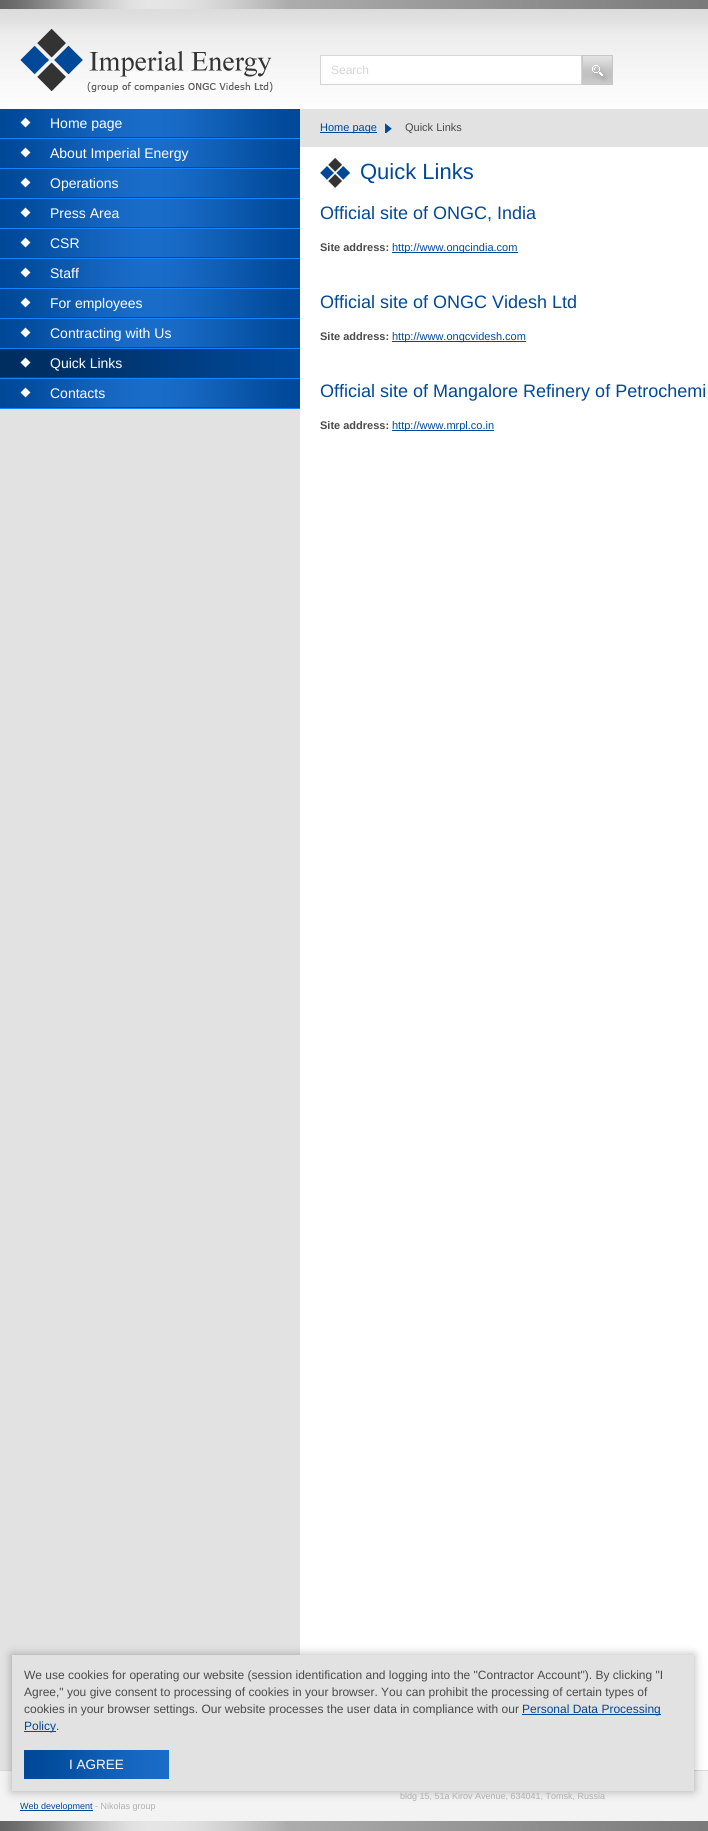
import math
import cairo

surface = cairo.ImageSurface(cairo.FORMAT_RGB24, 708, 1831)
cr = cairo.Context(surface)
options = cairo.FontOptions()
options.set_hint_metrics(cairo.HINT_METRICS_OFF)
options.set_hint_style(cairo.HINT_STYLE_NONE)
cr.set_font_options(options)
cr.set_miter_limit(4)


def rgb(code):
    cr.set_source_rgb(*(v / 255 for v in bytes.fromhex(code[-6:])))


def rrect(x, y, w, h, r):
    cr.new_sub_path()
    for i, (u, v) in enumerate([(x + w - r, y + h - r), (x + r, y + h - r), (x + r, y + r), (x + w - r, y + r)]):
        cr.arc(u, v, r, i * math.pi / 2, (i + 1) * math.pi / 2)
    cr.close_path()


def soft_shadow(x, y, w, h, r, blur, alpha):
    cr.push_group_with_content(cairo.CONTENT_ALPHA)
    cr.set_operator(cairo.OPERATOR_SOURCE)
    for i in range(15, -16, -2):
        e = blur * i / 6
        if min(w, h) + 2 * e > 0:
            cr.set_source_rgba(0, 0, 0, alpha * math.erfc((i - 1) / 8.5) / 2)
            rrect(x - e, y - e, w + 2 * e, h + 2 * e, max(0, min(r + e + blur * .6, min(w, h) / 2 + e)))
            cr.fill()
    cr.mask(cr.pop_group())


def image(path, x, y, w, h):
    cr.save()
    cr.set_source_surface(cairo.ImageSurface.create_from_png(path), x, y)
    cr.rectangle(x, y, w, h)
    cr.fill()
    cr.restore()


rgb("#ffffff")
cr.paint()
rgb("#e2e2e2")
cr.rectangle(0, 409, 300, 1361)
cr.fill()
image("img/1.png", 0, 0, 708, 9)
image("img/2.png", 0, 9, 708, 100)
image("img/3.png", 20, 29, 253, 63)
rgb("#ffffff")
cr.rectangle(320.5, 55.5, 261, 29)
cr.fill_preserve()
rgb("#d5d5d5")
cr.set_line_width(1)
cr.stroke()
image("img/4.png", 582, 55, 31, 30)
image("img/5.png", 0, 137, 300, 2)
image("img/6.png", 0, 109, 300, 28)
image("img/7.png", 20, 117, 11, 11)
image("img/5.png", 0, 167, 300, 2)
image("img/6.png", 0, 139, 300, 28)
image("img/7.png", 20, 147, 11, 11)
image("img/5.png", 0, 197, 300, 2)
image("img/6.png", 0, 169, 300, 28)
image("img/7.png", 20, 177, 11, 11)
image("img/5.png", 0, 227, 300, 2)
image("img/6.png", 0, 199, 300, 28)
image("img/7.png", 20, 207, 11, 11)
image("img/5.png", 0, 257, 300, 2)
image("img/6.png", 0, 229, 300, 28)
image("img/7.png", 20, 237, 11, 11)
image("img/5.png", 0, 287, 300, 2)
image("img/6.png", 0, 259, 300, 28)
image("img/7.png", 20, 267, 11, 11)
image("img/5.png", 0, 317, 300, 2)
image("img/6.png", 0, 289, 300, 28)
image("img/7.png", 20, 297, 11, 11)
image("img/5.png", 0, 347, 300, 2)
image("img/6.png", 0, 319, 300, 28)
image("img/7.png", 20, 327, 11, 11)
image("img/5.png", 0, 377, 300, 2)
image("img/8.png", 0, 349, 300, 28)
image("img/9.png", 20, 357, 11, 11)
image("img/5.png", 0, 407, 300, 2)
image("img/6.png", 0, 379, 300, 28)
image("img/7.png", 20, 387, 11, 11)
rgb("#e2e2e2")
cr.rectangle(300, 109, 408, 38)
cr.fill()
rgb("#004898")
cr.rectangle(320, 132, 57, 1)
cr.fill()
image("img/10.png", 385, 123, 7, 10)
image("img/11.png", 320, 158, 30, 30)
for x, y, w, h, color in [
    (392, 252, 126, 1, "#004898"),
    (392, 341, 134, 1, "#004898"),
    (392, 430, 102, 1, "#004898"),
    (0, 1771, 708, 50, "#f3f3f3"),
]:
    rgb(color)
    cr.rectangle(x, y, w, h)
    cr.fill()
image("img/12.png", 0, 1821, 708, 10)
rgb("#dadada")
cr.rectangle(0, 1770, 708, 1)
cr.fill()
rgb("#000000")
soft_shadow(12, 1655, 682, 136, 0, 5, 0.3)
for x, y, w, h, color in [
    (12, 1655, 682, 136, "#e2e2e2"),
    (522, 1714, 139, 1, "#004898"),
    (24, 1731, 32, 1, "#004898"),
]:
    rgb(color)
    cr.rectangle(x, y, w, h)
    cr.fill()
image("img/13.png", 24, 1750, 145, 29)
cr.rectangle(20, 1810, 73, 1)
cr.fill()
cr.select_font_face("Liberation Sans")
cr.set_font_size(12)
rgb("#d5d5d5")
cr.move_to(331, 74)
cr.show_text("Search")
cr.set_font_size(14)
rgb("#ffffff")
for x, y, s in [
    (50, 128, "Home page"),
    (50, 158, "About Imperial Energy"),
    (50, 188, "Operations"),
    (50, 218, "Press Area"),
    (50, 248, "CSR"),
    (50, 278, "Staff"),
    (50, 308, "For employees"),
    (50, 338, "Contracting with Us"),
    (50, 368, "Quick Links"),
    (50, 398, "Contacts"),
]:
    cr.move_to(x, y)
    cr.show_text(s)
cr.set_font_size(11)
rgb("#004898")
cr.move_to(320, 131)
cr.show_text("Home page")
rgb("#4b4a4a")
cr.move_to(405, 131)
cr.show_text("Quick Links")
cr.set_font_size(22)
rgb("#004898")
cr.move_to(360, 179)
cr.show_text("Quick Links")
cr.set_font_size(18)
cr.move_to(320, 219)
cr.show_text("Official site of ONGC, India")
cr.select_font_face("Liberation Sans", cairo.FONT_SLANT_NORMAL, cairo.FONT_WEIGHT_BOLD)
cr.set_font_size(11)
rgb("#4b4a4a")
cr.move_to(320, 251)
cr.show_text("Site address:")
cr.select_font_face("Liberation Sans")
rgb("#004898")
cr.move_to(392, 251)
cr.show_text("http://www.ongcindia.com")
cr.set_font_size(18)
cr.move_to(320, 308)
cr.show_text("Official site of ONGC Videsh Ltd")
cr.select_font_face("Liberation Sans", cairo.FONT_SLANT_NORMAL, cairo.FONT_WEIGHT_BOLD)
cr.set_font_size(11)
rgb("#4b4a4a")
cr.move_to(320, 340)
cr.show_text("Site address:")
cr.select_font_face("Liberation Sans")
rgb("#004898")
cr.move_to(392, 340)
cr.show_text("http://www.ongcvidesh.com")
cr.set_font_size(18)
cr.move_to(320, 397)
cr.show_text("Official site of Mangalore Refinery of Petrochemi")
cr.select_font_face("Liberation Sans", cairo.FONT_SLANT_NORMAL, cairo.FONT_WEIGHT_BOLD)
cr.set_font_size(11)
rgb("#4b4a4a")
cr.move_to(320, 429)
cr.show_text("Site address:")
cr.select_font_face("Liberation Sans")
rgb("#004898")
cr.move_to(392, 429)
cr.show_text("http://www.mrpl.co.in")
cr.set_font_size(12)
rgb("#4b4a4a")
for x, y, s in [
    (24, 1679, "We use cookies for operating our website (session identification and logging into the \"Contractor Account\"). By clicking \"I"),
    (24, 1696, "Agree,\" you give consent to processing of cookies in your browser. You can prohibit the processing of certain types of"),
    (24, 1713, "cookies in your browser settings. Our website processes the user data in compliance with our"),
]:
    cr.move_to(x, y)
    cr.show_text(s)
rgb("#004898")
cr.move_to(522, 1713)
cr.show_text("Personal Data Processing")
cr.move_to(24, 1730)
cr.show_text("Policy")
rgb("#4b4a4a")
cr.move_to(56, 1730)
cr.show_text(".")
cr.set_font_size(13.5)
rgb("#ffffff")
cr.move_to(69, 1769)
cr.show_text("I AGREE")
cr.set_font_size(9)
rgb("#b0b0b0")
cr.move_to(400, 1799)
cr.show_text("bldg 15, 51a Kirov Avenue, 634041, Tomsk, Russia")
rgb("#004898")
cr.move_to(20, 1809)
cr.show_text("Web development")
rgb("#b0b0b0")
cr.move_to(95, 1809)
cr.show_text("- Nikolas group")
surface.write_to_png("page.png")
